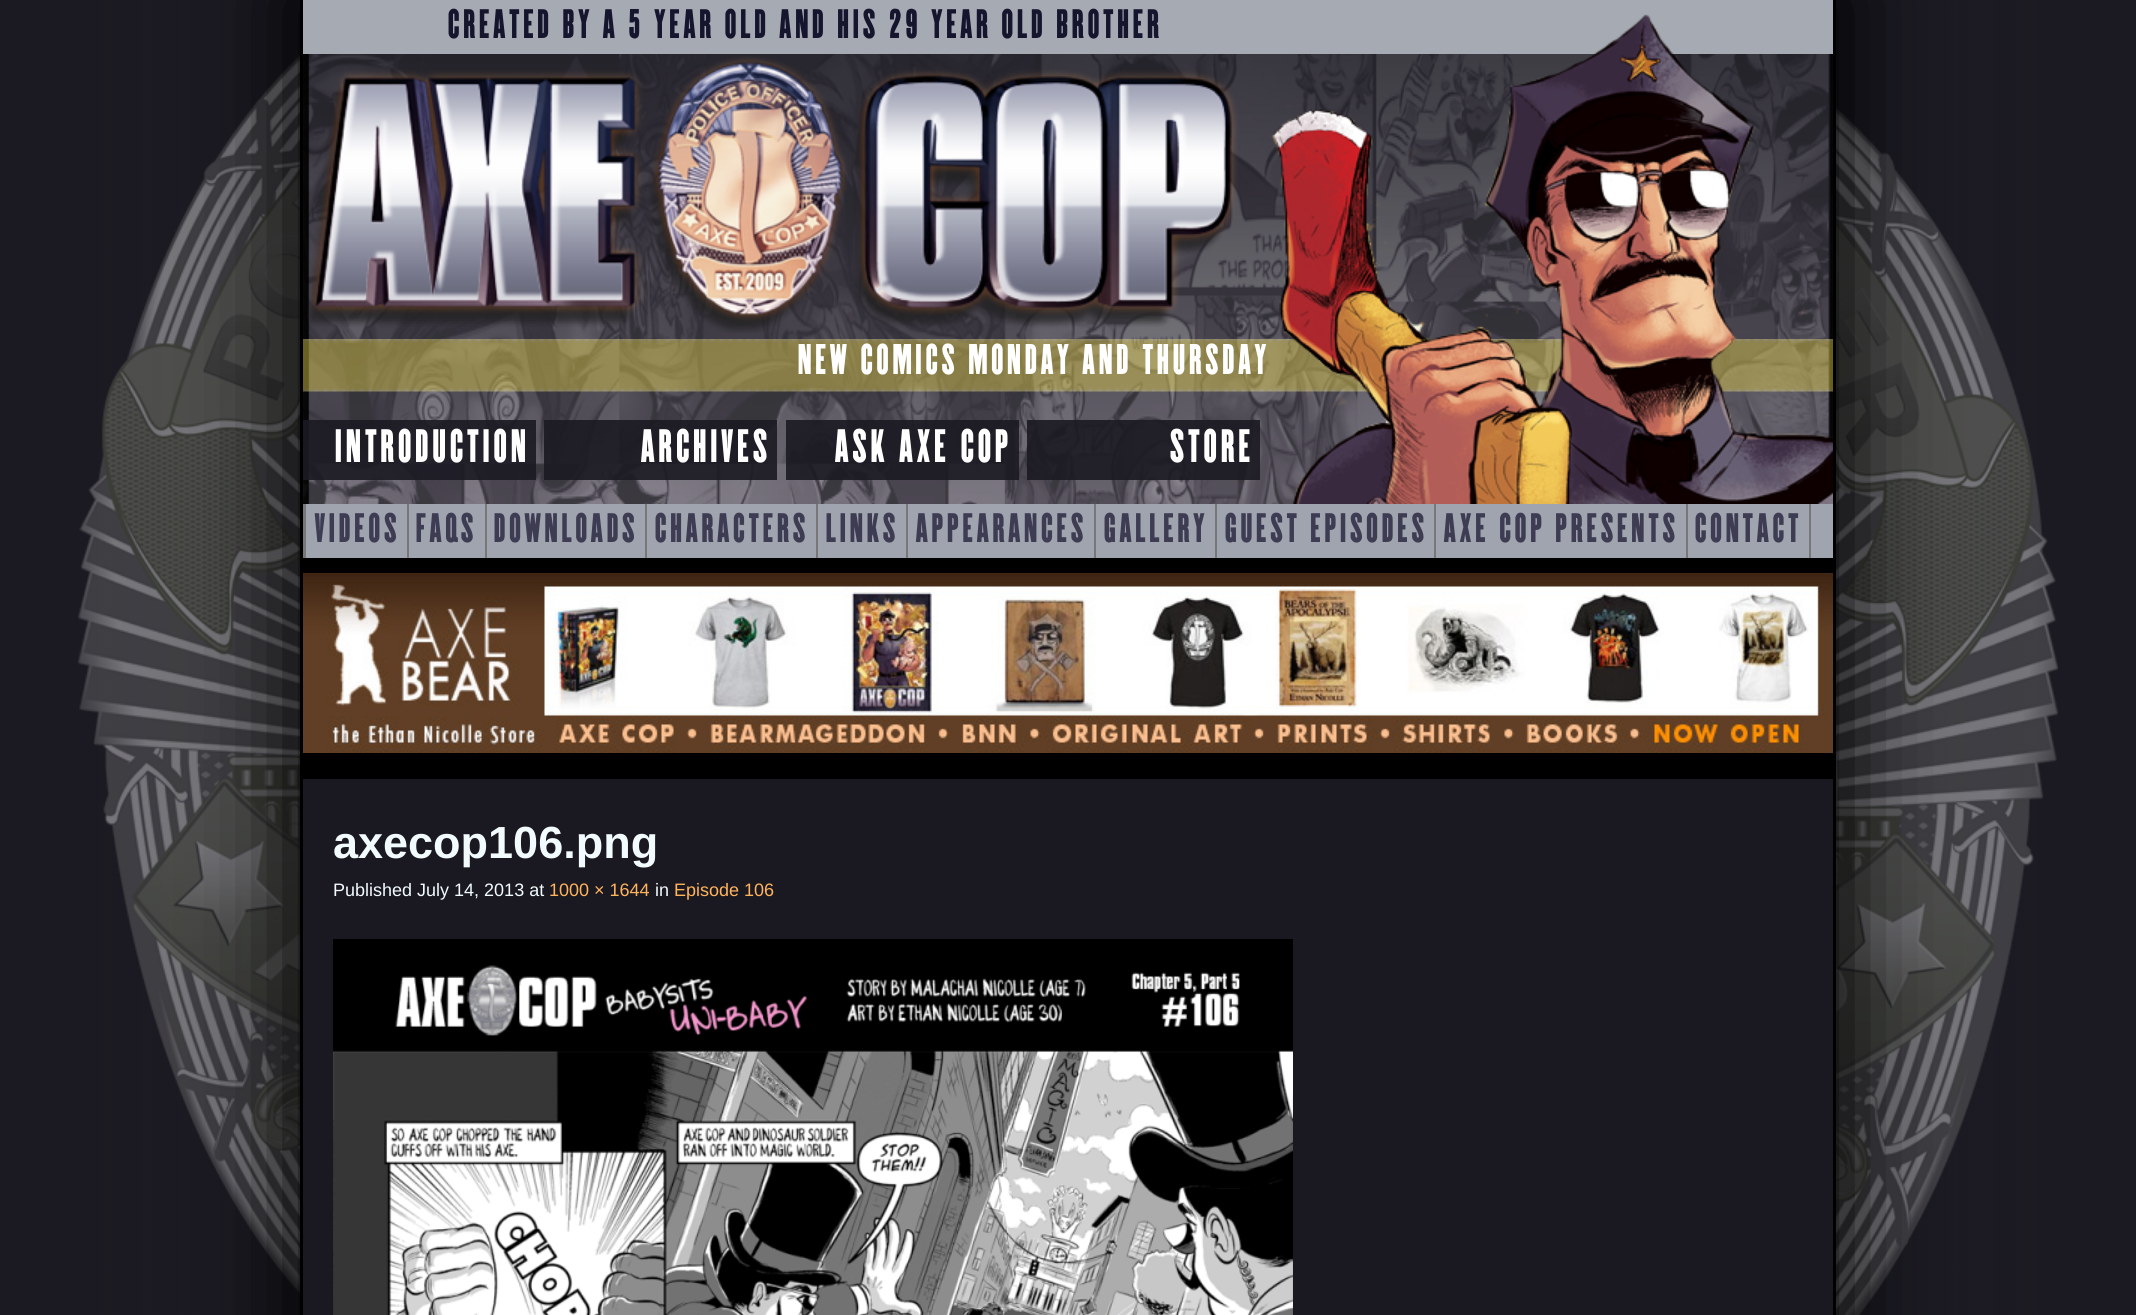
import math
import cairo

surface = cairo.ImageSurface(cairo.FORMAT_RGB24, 2136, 1315)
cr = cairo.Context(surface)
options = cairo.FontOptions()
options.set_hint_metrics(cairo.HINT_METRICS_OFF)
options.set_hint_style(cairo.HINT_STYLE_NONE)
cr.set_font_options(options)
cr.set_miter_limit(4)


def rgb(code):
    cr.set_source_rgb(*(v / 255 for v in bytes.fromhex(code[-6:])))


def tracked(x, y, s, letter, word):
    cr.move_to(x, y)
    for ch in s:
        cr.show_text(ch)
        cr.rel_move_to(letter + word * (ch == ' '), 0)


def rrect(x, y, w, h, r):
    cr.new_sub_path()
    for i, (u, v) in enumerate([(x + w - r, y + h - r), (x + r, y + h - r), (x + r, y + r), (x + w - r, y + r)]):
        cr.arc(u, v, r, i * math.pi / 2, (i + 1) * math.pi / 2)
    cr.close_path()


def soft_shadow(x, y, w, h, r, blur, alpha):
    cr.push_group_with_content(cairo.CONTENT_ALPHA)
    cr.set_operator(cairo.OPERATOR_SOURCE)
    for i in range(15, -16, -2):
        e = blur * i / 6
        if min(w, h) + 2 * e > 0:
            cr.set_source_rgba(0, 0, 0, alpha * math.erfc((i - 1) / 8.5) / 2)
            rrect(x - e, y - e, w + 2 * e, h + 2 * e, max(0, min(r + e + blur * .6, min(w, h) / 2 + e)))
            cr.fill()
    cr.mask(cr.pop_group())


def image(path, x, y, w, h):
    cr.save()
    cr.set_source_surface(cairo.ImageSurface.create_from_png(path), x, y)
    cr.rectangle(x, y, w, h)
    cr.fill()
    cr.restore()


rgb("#1b1a22")
cr.paint()
image("img/1.png", 78, 0, 1980, 1315)
rgb("#000000")
soft_shadow(290, -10, 1557, 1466, 0, 47, 1)
for x, y, w, h, color in [
    (303, 779, 1530, 536, "#1a1921"),
    (1833, 0, 3, 1315, "#000000"),
    (300, 0, 3, 1315, "#000000"),
]:
    rgb(color)
    cr.rectangle(x, y, w, h)
    cr.fill()
image("img/2.png", 303, 54, 1530, 450)
rgb("#a6aab3")
cr.rectangle(303, 0, 1530, 54)
cr.fill()
image("img/3.png", 307, 56, 931, 277)
image("img/5.png", 303, 339, 1530, 53)
image("img/4.png", 1271, 14, 562, 490)
cr.set_source_rgba(0.106, 0.102, 0.137, 0.9)
cr.rectangle(303, 420, 233, 60)
cr.fill()
cr.rectangle(544, 420, 233, 60)
cr.fill()
cr.rectangle(786, 420, 233, 60)
cr.fill()
cr.rectangle(1027, 420, 233, 60)
cr.fill()
rgb("#9fa4ae")
cr.rectangle(306, 504, 1527, 54)
cr.fill()
rgb("#777777")
cr.rectangle(303, 504, 3, 54)
cr.rectangle(407, 504, 2, 54)
cr.rectangle(485, 504, 2, 54)
cr.rectangle(645, 504, 2, 54)
cr.rectangle(816, 504, 2, 54)
cr.rectangle(906, 504, 2, 54)
cr.rectangle(1094, 504, 2, 54)
cr.rectangle(1215, 504, 2, 54)
cr.rectangle(1434, 504, 2, 54)
cr.rectangle(1686, 504, 2, 54)
cr.rectangle(1809, 504, 2, 54)
cr.fill()
rgb("#000000")
cr.rectangle(303, 558, 1530, 221)
cr.fill()
image("img/6.png", 303, 573, 1530, 180)
image("img/7.png", 333, 939, 960, 376)
cr.select_font_face("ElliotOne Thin")
cr.set_font_size(36)
rgb("#16152e")
tracked(447, 38, "CREATED BY A 5 YEAR OLD AND HIS 29 YEAR OLD BROTHER", 3, 0)
cr.set_font_size(37.5)
rgb("#ffffff")
tracked(797, 374, "NEW COMICS MONDAY AND THURSDAY", 3, 0)
cr.set_font_size(41)
for x, y, s in [
    (334, 462, "INTRODUCTION"),
    (640, 462, "ARCHIVES"),
    (834, 462, "ASK AXE COP"),
    (1169, 462, "STORE"),
]:
    tracked(x, y, s, 3, 0)
cr.set_font_size(36)
rgb("#3d3c52")
for x, y, s in [
    (314, 542, "VIDEOS"),
    (415, 542, "FAQS"),
    (493, 542, "DOWNLOADS"),
    (654, 542, "CHARACTERS"),
    (825, 542, "LINKS"),
    (915, 542, "APPEARANCES"),
    (1103, 542, "GALLERY"),
    (1224, 542, "GUEST EPISODES"),
    (1443, 542, "AXE COP PRESENTS"),
    (1694, 542, "CONTACT"),
]:
    tracked(x, y, s, 3, 0)
cr.select_font_face("Liberation Sans", cairo.FONT_SLANT_NORMAL, cairo.FONT_WEIGHT_BOLD)
cr.set_font_size(45)
rgb("#f2fbfd")
cr.move_to(333, 858)
cr.show_text("axecop106.png")
cr.select_font_face("Liberation Sans")
cr.set_font_size(18)
cr.move_to(333, 896)
cr.show_text("Published July 14, 2013 at")
rgb("#ffb35c")
cr.move_to(549, 896)
cr.show_text("1000 × 1644")
rgb("#f2fbfd")
cr.move_to(655, 896)
cr.show_text("in")
rgb("#ffb35c")
cr.move_to(674, 896)
cr.show_text("Episode 106")
surface.write_to_png("page.png")
